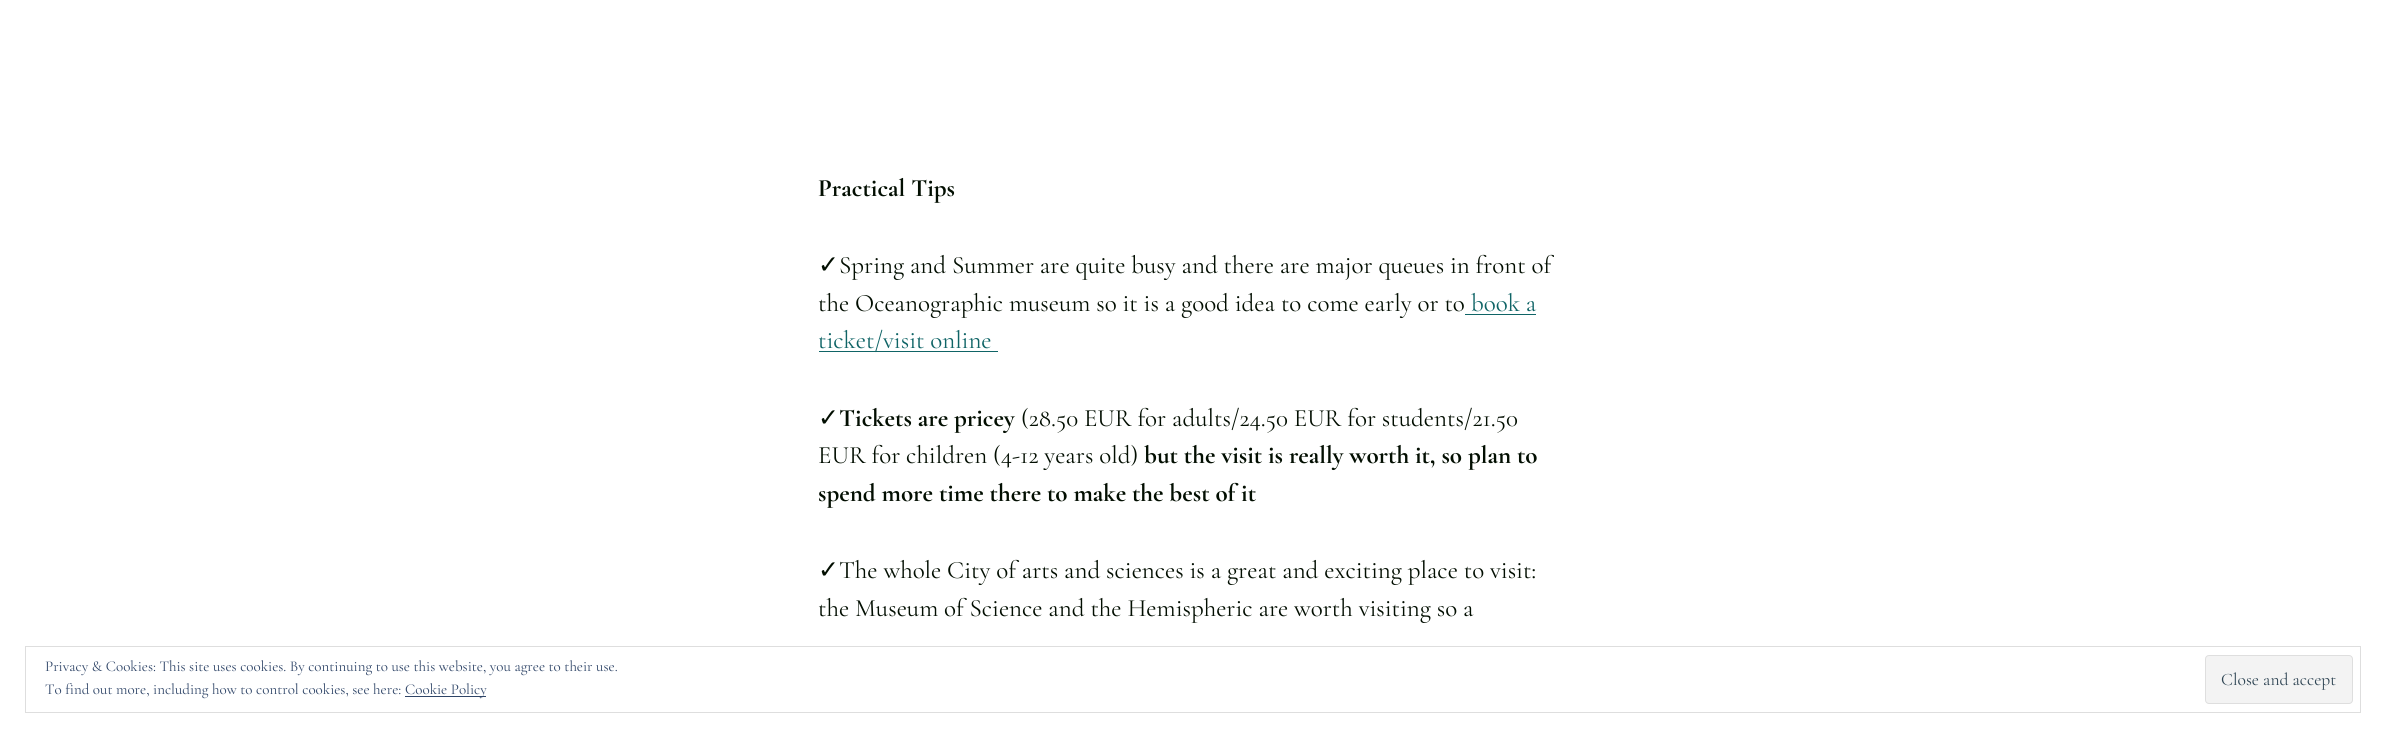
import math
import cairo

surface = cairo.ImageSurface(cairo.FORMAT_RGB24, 2386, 737)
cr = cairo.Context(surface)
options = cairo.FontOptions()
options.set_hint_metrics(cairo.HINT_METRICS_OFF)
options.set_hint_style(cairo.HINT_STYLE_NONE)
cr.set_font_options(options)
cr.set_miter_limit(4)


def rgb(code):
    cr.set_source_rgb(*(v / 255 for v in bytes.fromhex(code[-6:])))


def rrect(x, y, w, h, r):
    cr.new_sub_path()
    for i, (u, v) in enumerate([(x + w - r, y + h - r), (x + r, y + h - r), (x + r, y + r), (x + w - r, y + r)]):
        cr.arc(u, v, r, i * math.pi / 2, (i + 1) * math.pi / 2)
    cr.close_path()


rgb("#ffffff")
cr.paint()
rgb("#0f6466")
cr.rectangle(1465, 314, 71, 1)
cr.fill()
cr.rectangle(819, 351, 179, 1)
cr.fill()
cr.rectangle(25.5, 646.5, 2335, 66)
rgb("#dedede")
cr.set_line_width(1)
cr.stroke()
rgb("#2e4467")
cr.rectangle(405, 696, 81, 1)
cr.fill()
rgb("#f3f3f3")
rrect(2205.5, 655.5, 147, 48, 3.5)
cr.fill_preserve()
rgb("#dedede")
cr.stroke()
cr.select_font_face("Cormorant Garamond", cairo.FONT_SLANT_NORMAL, cairo.FONT_WEIGHT_BOLD)
cr.set_font_size(25)
rgb("#020e01")
cr.move_to(818, 196)
cr.show_text("Practical Tips")
cr.select_font_face("DejaVu Sans")
cr.move_to(818, 273)
cr.show_text("✓")
cr.select_font_face("Cormorant Garamond")
cr.move_to(839, 273)
cr.show_text("Spring and Summer are quite busy and there are major queues in front of")
cr.move_to(818, 311)
cr.show_text("the Oceanographic museum so it is a good idea to come early or to")
rgb("#0f6466")
cr.move_to(1471, 311)
cr.show_text("book a")
cr.move_to(818, 348)
cr.show_text("ticket/visit online")
cr.select_font_face("DejaVu Sans")
rgb("#020e01")
cr.move_to(818, 426)
cr.show_text("✓")
cr.select_font_face("Cormorant Garamond", cairo.FONT_SLANT_NORMAL, cairo.FONT_WEIGHT_BOLD)
cr.move_to(839, 426)
cr.show_text("Tickets are pricey")
cr.select_font_face("Cormorant Garamond")
cr.move_to(1021, 426)
cr.show_text("(28.50 EUR for adults/24.50 EUR for students/21.50")
cr.move_to(818, 463)
cr.show_text("EUR for children (4-12 years old)")
cr.select_font_face("Cormorant Garamond", cairo.FONT_SLANT_NORMAL, cairo.FONT_WEIGHT_BOLD)
cr.move_to(1144, 463)
cr.show_text("but the visit is really worth it, so plan to")
cr.move_to(818, 501)
cr.show_text("spend more time there to make the best of it")
cr.select_font_face("DejaVu Sans")
cr.move_to(818, 578)
cr.show_text("✓")
cr.select_font_face("Cormorant Garamond")
cr.move_to(839, 578)
cr.show_text("The whole City of arts and sciences is a great and exciting place to visit:")
cr.move_to(818, 616)
cr.show_text("the Museum of Science and the Hemispheric are worth visiting so a")
cr.set_font_size(15)
rgb("#2e4467")
for x, y, s in [
    (45, 671, "Privacy & Cookies: This site uses cookies. By continuing to use this website, you agree to their use."),
    (45, 694, "To find out more, including how to control cookies, see here:"),
    (405, 694, "Cookie Policy"),
]:
    cr.move_to(x, y)
    cr.show_text(s)
cr.set_font_size(17.5)
rgb("#2e4453")
cr.move_to(2221, 685)
cr.show_text("Close and accept")
surface.write_to_png("page.png")
